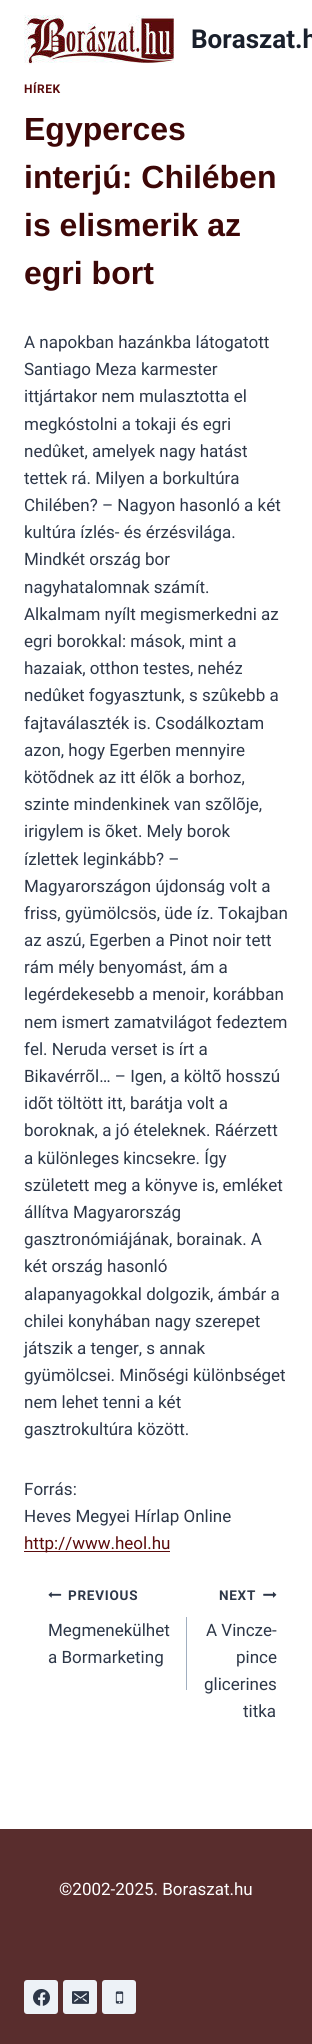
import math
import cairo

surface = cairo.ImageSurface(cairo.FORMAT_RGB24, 312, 2044)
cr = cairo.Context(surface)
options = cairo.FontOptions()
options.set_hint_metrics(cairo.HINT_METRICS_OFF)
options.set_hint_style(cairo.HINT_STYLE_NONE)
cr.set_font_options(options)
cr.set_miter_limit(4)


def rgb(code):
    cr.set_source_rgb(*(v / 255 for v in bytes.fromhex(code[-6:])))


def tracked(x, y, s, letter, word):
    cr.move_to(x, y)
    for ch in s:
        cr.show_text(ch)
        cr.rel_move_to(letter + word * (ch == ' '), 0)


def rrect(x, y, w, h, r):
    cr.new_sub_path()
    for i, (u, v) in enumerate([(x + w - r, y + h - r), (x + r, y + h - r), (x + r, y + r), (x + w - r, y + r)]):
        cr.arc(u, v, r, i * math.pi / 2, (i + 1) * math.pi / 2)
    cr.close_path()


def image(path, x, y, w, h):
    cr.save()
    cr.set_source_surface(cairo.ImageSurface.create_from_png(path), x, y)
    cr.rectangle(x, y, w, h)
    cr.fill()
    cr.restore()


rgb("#ffffff")
cr.paint()
image("img/1.png", 24, 15, 150, 50)
rgb("#5a0b0c")
cr.rectangle(24, 1551, 146, 1)
cr.fill()
image("img/2.png", 48, 1592, 14, 6)
rgb("#a0aec0")
cr.rectangle(186, 1617, 1, 73)
cr.fill()
image("img/3.png", 263, 1591, 14, 7)
rgb("#592d2d")
cr.rectangle(0, 1829, 312, 215)
cr.fill()
rgb("#edf2f7")
rrect(24, 1980, 34, 34, 3)
cr.fill()
image("img/4.png", 33, 1989, 17, 17)
rrect(63, 1980, 34, 34, 3)
cr.fill()
image("img/5.png", 72, 1991, 17, 13)
rrect(102, 1980, 34, 34, 3)
cr.fill()
image("img/6.png", 115, 1991, 9, 13)
cr.select_font_face("Roboto", cairo.FONT_SLANT_NORMAL, cairo.FONT_WEIGHT_BOLD)
cr.set_font_size(26)
rgb("#1a202c")
cr.move_to(191, 48)
cr.show_text("Boraszat.h")
cr.set_font_size(12)
rgb("#5a0b0c")
tracked(24, 93, "HÍREK", 0.5, 0)
cr.select_font_face("Liberation Sans", cairo.FONT_SLANT_NORMAL, cairo.FONT_WEIGHT_BOLD)
cr.set_font_size(32)
rgb("#3d0707")
for x, y, s in [
    (24, 140, "Egyperces"),
    (24, 188, "interjú: Chilében"),
    (24, 236, "is elismerik az"),
    (24, 284, "egri bort"),
]:
    cr.move_to(x, y)
    cr.show_text(s)
cr.select_font_face("Roboto")
cr.set_font_size(17)
rgb("#2d3748")
for x, y, s in [
    (24, 348, "A napokban hazánkba látogatott"),
    (24, 375, "Santiago Meza karmester"),
    (24, 402, "ittjártakor nem mulasztotta el"),
    (24, 430, "megkóstolni a tokaji és egri"),
    (24, 457, "nedûket, amelyek nagy hatást"),
    (24, 484, "tettek rá. Milyen a borkultúra"),
    (24, 511, "Chilében? – Nagyon hasonló a két"),
    (24, 538, "kultúra ízlés- és érzésvilága."),
    (24, 565, "Mindkét ország bor"),
    (24, 593, "nagyhatalomnak számít."),
    (24, 620, "Alkalmam nyílt megismerkedni az"),
    (24, 647, "egri borokkal: mások, mint a"),
    (24, 674, "hazaiak, otthon testes, nehéz"),
    (24, 701, "nedûket fogyasztunk, s szûkebb a"),
    (24, 729, "fajtaválaszték is. Csodálkoztam"),
    (24, 756, "azon, hogy Egerben mennyire"),
    (24, 783, "kötõdnek az itt élõk a borhoz,"),
    (24, 810, "szinte mindenkinek van szõlõje,"),
    (24, 837, "irigylem is õket. Mely borok"),
    (24, 865, "ízlettek leginkább? –"),
    (24, 892, "Magyarországon újdonság volt a"),
    (24, 919, "friss, gyümölcsös, üde íz. Tokajban"),
    (24, 946, "az aszú, Egerben a Pinot noir tett"),
    (24, 973, "rám mély benyomást, ám a"),
    (24, 1000, "legérdekesebb a menoir, korábban"),
    (24, 1028, "nem ismert zamatvilágot fedeztem"),
    (24, 1055, "fel. Neruda verset is írt a"),
    (24, 1082, "Bikavérrõl… – Igen, a költõ hosszú"),
    (24, 1109, "idõt töltött itt, barátja volt a"),
    (24, 1136, "boroknak, a jó ételeknek. Ráérzett"),
    (24, 1164, "a különleges kincsekre. Így"),
    (24, 1191, "született meg a könyve is, emléket"),
    (24, 1218, "állítva Magyarország"),
    (24, 1245, "gasztronómiájának, borainak. A"),
    (24, 1272, "két ország hasonló"),
    (24, 1300, "alapanyagokkal dolgozik, ámbár a"),
    (24, 1327, "chilei konyhában nagy szerepet"),
    (24, 1354, "játszik a tenger, s annak"),
    (24, 1381, "gyümölcsei. Minõségi különbséget"),
    (24, 1408, "nem lehet tenni a két"),
    (24, 1435, "gasztrokultúra között."),
    (24, 1495, "Forrás:"),
    (24, 1522, "Heves Megyei Hírlap Online"),
]:
    cr.move_to(x, y)
    cr.show_text(s)
rgb("#5a0b0c")
cr.move_to(24, 1549)
cr.show_text("http://www.heol.hu")
cr.select_font_face("Roboto", cairo.FONT_SLANT_NORMAL, cairo.FONT_WEIGHT_BOLD)
cr.set_font_size(13.5)
rgb("#2d3748")
tracked(68, 1600, "PREVIOUS", 0.75, 0)
cr.select_font_face("Roboto")
cr.set_font_size(17)
cr.move_to(48, 1636)
cr.show_text("Megmenekülhet")
cr.move_to(48, 1663)
cr.show_text("a Bormarketing")
cr.select_font_face("Roboto", cairo.FONT_SLANT_NORMAL, cairo.FONT_WEIGHT_BOLD)
cr.set_font_size(13.5)
tracked(219, 1600, "NEXT", 0.75, 0)
cr.select_font_face("Roboto")
cr.set_font_size(17)
for x, y, s in [
    (206, 1636, "A Vincze-"),
    (236, 1663, "pince"),
    (204, 1690, "glicerines"),
    (243, 1717, "titka"),
]:
    cr.move_to(x, y)
    cr.show_text(s)
rgb("#ffffff")
cr.move_to(59, 1895)
cr.show_text("©2002-2025. Boraszat.hu")
surface.write_to_png("page.png")
